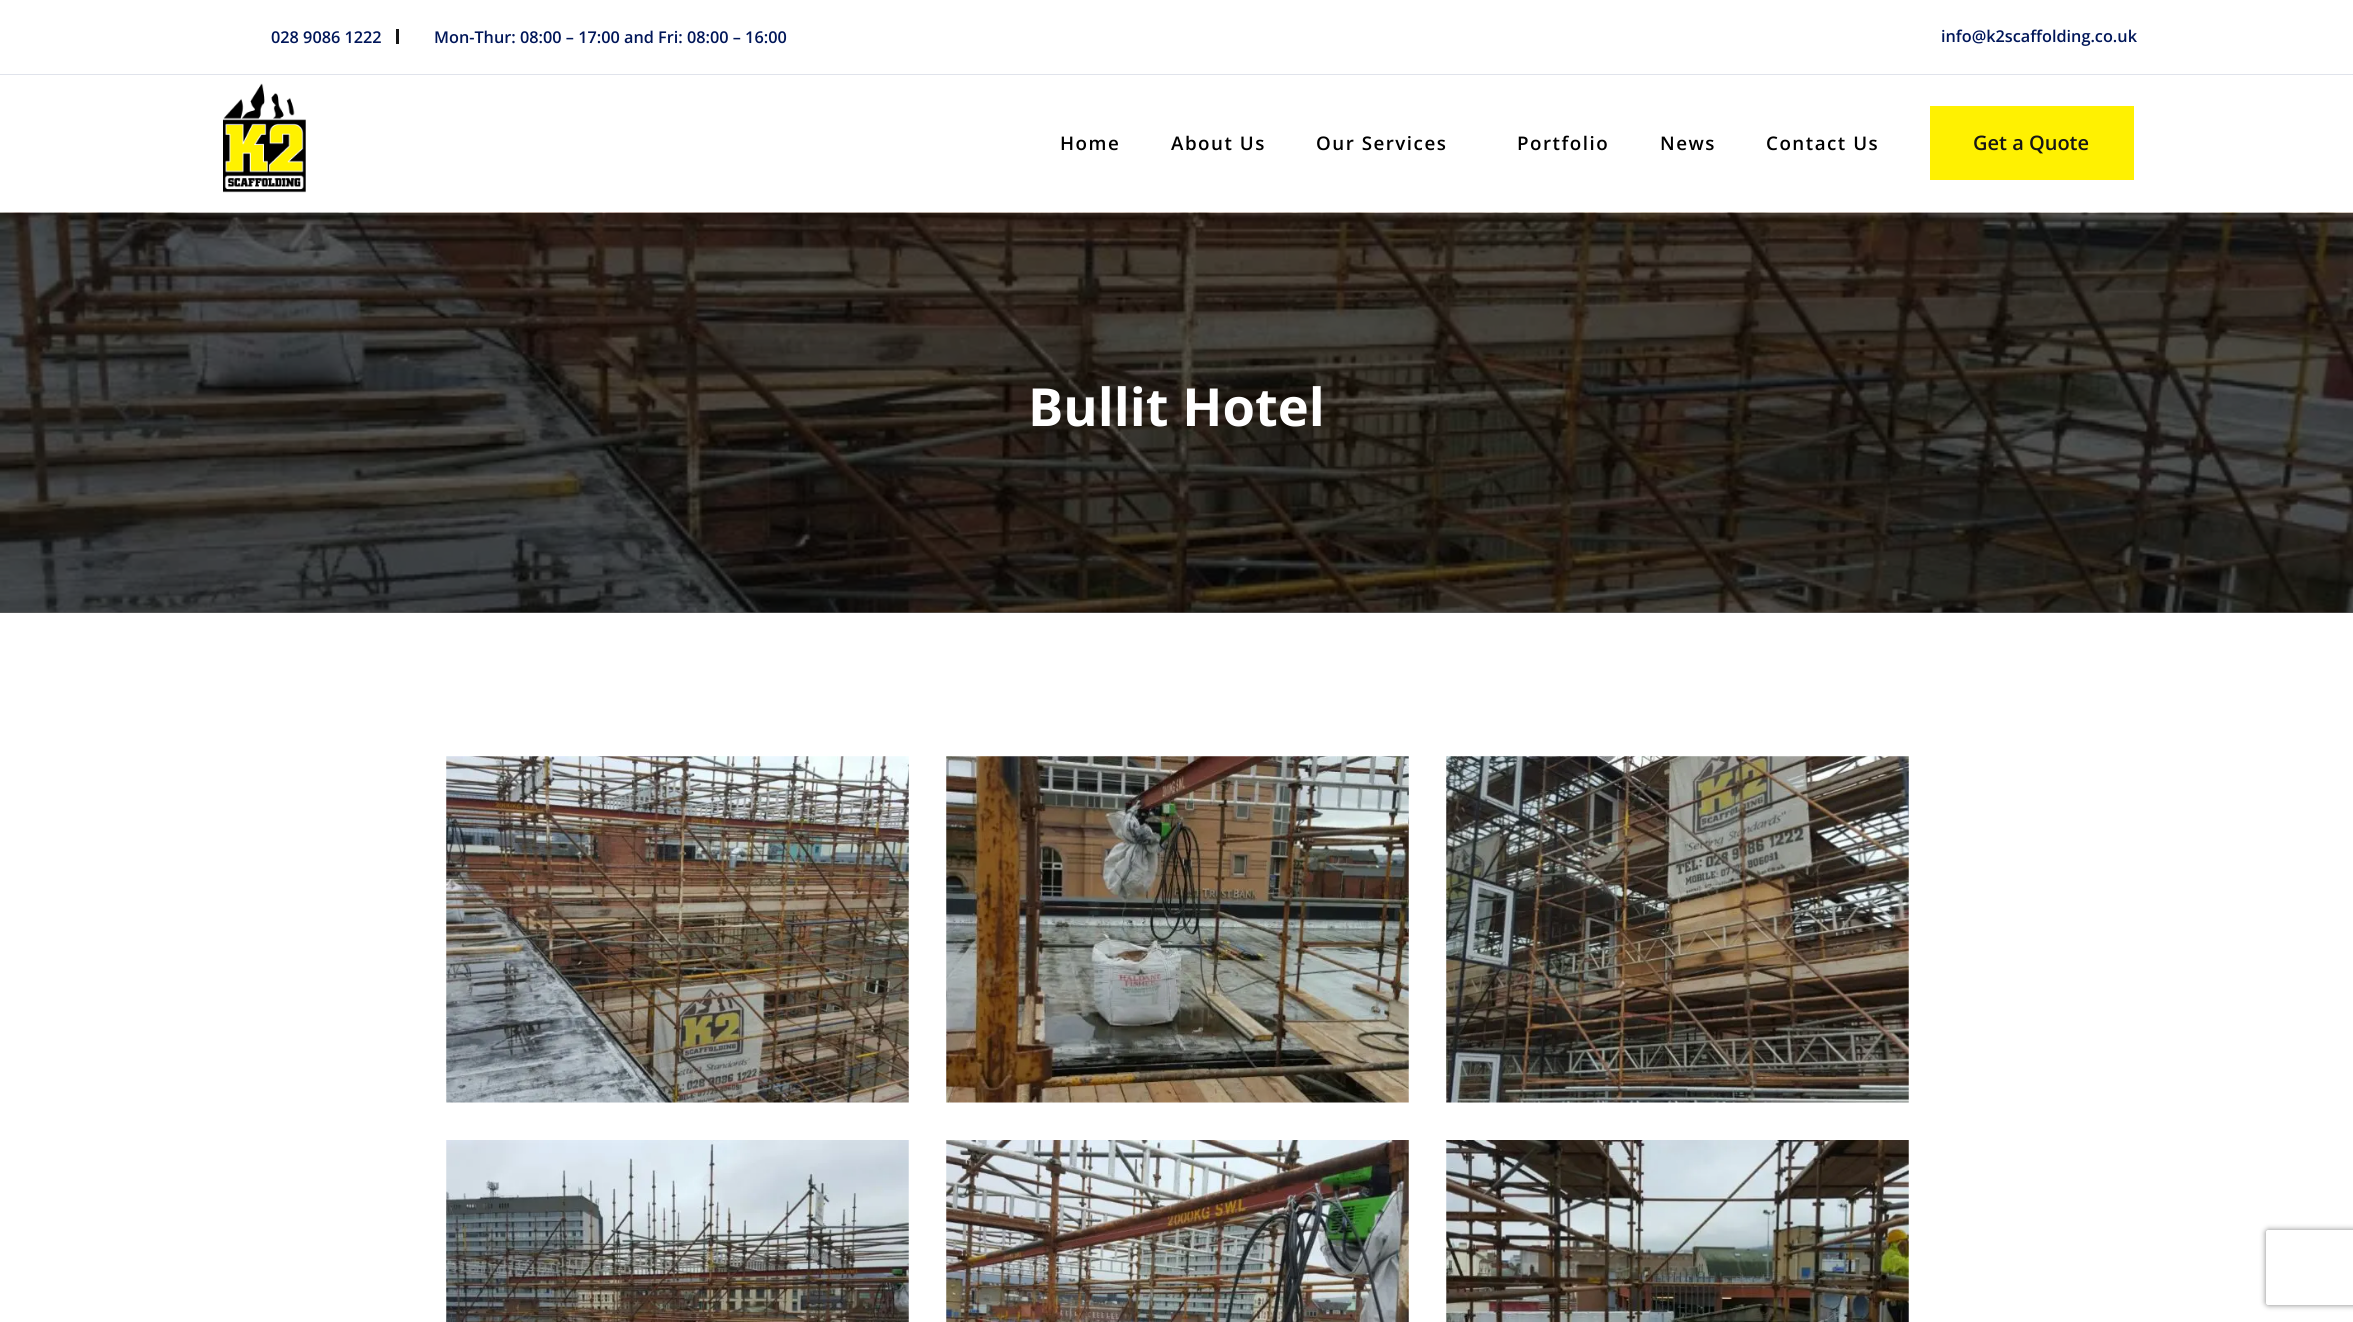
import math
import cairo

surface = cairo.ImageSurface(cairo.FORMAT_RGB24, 2353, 1322)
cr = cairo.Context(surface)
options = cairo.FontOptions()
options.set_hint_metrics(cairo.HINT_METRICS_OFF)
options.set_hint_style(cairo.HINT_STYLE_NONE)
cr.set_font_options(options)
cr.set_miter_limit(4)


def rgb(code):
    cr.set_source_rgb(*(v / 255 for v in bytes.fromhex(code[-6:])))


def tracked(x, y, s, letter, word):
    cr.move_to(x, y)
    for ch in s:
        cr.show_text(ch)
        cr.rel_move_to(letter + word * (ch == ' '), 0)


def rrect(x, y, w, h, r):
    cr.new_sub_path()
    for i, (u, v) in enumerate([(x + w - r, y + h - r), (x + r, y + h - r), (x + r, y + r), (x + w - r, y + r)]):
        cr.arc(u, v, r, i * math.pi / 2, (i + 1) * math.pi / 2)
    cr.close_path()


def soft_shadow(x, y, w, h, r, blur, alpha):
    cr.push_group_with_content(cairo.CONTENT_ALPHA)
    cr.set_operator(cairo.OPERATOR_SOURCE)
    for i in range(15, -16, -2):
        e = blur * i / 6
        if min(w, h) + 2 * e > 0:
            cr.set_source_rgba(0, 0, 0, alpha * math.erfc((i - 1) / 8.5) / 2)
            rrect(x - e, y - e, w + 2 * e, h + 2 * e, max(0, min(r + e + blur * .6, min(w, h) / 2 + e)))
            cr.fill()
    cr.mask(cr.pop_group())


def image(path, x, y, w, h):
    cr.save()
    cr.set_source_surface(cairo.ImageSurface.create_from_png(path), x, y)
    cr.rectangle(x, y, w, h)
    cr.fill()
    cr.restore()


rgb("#ffffff")
cr.paint()
rgb("#e0e3eb")
cr.rectangle(0, 74, 2353, 1)
cr.fill()
rgb("#161616")
cr.rectangle(396, 29, 3, 15)
cr.fill()
image("img/1.png", 223, 83, 83, 110)
rgb("#fff101")
cr.rectangle(1930, 106, 204, 74)
cr.fill()
rgb("#626262")
cr.rectangle(0, 612, 2353, 1)
cr.fill()
image("img/2.png", 0, 212, 2353, 401)
image("img/3.png", 446, 756, 463, 347)
image("img/4.png", 946, 756, 463, 347)
image("img/5.png", 1446, 756, 463, 347)
image("img/6.png", 446, 1140, 463, 182)
image("img/7.png", 946, 1140, 463, 182)
image("img/8.png", 1446, 1140, 463, 182)
cr.save()
cr.set_fill_rule(cairo.FILL_RULE_EVEN_ODD)
cr.new_path()
cr.move_to(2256, 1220)
cr.line_to(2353, 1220)
cr.line_to(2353, 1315)
cr.line_to(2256, 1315)
cr.close_path()
cr.move_to(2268.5, 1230)
cr.line_to(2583.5, 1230)
cr.curve_to(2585, 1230, 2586, 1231, 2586, 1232.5)
cr.line_to(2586, 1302.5)
cr.curve_to(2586, 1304, 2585, 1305, 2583.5, 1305)
cr.line_to(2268.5, 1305)
cr.curve_to(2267, 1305, 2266, 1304, 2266, 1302.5)
cr.line_to(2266, 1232.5)
cr.curve_to(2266, 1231, 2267, 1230, 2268.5, 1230)
cr.close_path()
cr.clip()
rgb("#808080")
soft_shadow(2266, 1230, 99, 75, 2.5, 3, 1)
cr.restore()
cr.select_font_face("Open Sans SemiBold")
cr.set_font_size(16.25)
rgb("#001659")
for x, y, s in [
    (271, 43, "028 9086 1222"),
    (434, 43, "Mon-Thur: 08:00 – 17:00 and Fri: 08:00 – 16:00"),
    (1941, 42, "info@k2scaffolding.co.uk"),
]:
    cr.move_to(x, y)
    cr.show_text(s)
cr.set_font_size(18.75)
rgb("#000000")
for x, y, s in [
    (1060, 150, "Home"),
    (1171, 150, "About Us"),
    (1316, 150, "Our Services"),
    (1517, 150, "Portfolio"),
    (1660, 150, "News"),
    (1766, 150, "Contact Us"),
]:
    tracked(x, y, s, 1.5, 0)
cr.set_font_size(20)
rgb("#161616")
cr.move_to(1973, 150)
cr.show_text("Get a Quote")
cr.select_font_face("Open Sans", cairo.FONT_SLANT_NORMAL, cairo.FONT_WEIGHT_BOLD)
cr.set_font_size(52.5)
rgb("#ffffff")
cr.move_to(1028, 426)
cr.show_text("Bullit Hotel")
surface.write_to_png("page.png")
